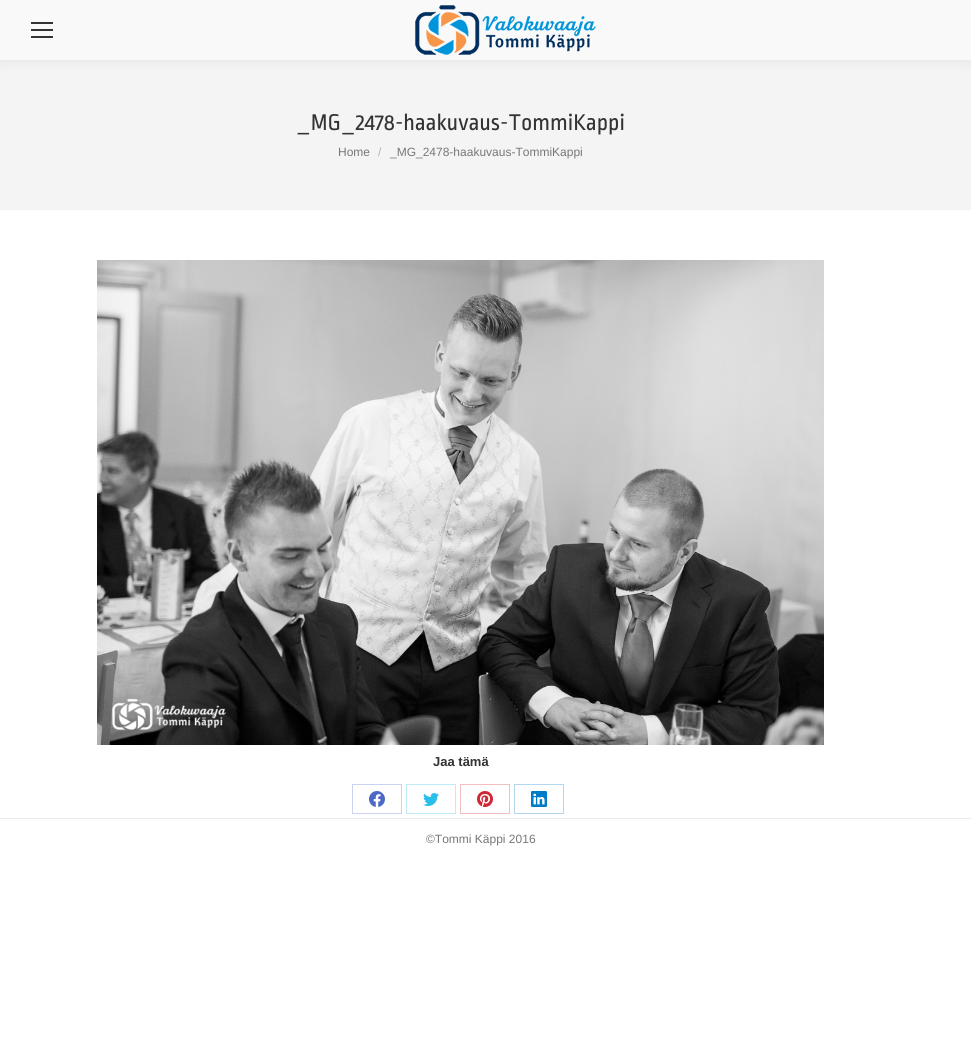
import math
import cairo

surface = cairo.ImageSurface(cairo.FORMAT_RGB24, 971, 1048)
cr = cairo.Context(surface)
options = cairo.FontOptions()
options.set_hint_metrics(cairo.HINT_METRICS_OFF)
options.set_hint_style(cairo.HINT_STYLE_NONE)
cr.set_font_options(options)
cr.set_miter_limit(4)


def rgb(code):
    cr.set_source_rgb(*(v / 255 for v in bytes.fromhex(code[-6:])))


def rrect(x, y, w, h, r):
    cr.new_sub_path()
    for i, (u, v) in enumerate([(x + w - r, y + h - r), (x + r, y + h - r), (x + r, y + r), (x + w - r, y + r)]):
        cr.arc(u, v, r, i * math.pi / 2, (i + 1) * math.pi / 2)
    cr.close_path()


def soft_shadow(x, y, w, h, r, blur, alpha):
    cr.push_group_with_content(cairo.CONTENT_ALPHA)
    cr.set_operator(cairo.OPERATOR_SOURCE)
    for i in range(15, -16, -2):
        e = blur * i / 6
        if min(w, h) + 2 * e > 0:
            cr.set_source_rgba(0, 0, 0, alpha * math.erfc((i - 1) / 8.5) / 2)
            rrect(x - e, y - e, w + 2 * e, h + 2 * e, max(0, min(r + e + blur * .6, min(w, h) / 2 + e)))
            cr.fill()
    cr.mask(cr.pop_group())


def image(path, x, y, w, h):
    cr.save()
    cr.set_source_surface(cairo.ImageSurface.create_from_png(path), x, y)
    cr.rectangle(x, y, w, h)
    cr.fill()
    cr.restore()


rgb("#ffffff")
cr.paint()
rgb("#f4f4f4")
cr.rectangle(0, 60, 971, 150)
cr.fill()
rgb("#000000")
soft_shadow(-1, -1, 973, 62, 0, 7.5, 0.07)
for x, y, w, h, color in [
    (0, 0, 971, 60, "#f9f9f9"),
    (31, 22, 22, 2, "#333333"),
    (31, 29, 22, 2, "#333333"),
    (31, 36, 22, 2, "#333333"),
]:
    rgb(color)
    cr.rectangle(x, y, w, h)
    cr.fill()
image("img/1.png", 415, 5, 181, 50)
image("img/2.png", 97, 260, 727, 485)
cr.rectangle(352.5, 784.5, 49, 29)
rgb("#c9d2ee")
cr.set_line_width(1)
cr.stroke()
image("img/3.png", 369, 791, 16, 16)
cr.rectangle(406.5, 784.5, 49, 29)
rgb("#bfecf9")
cr.stroke()
image("img/4.png", 423, 793, 16, 13)
cr.rectangle(460.5, 784.5, 49, 29)
rgb("#f1bfc2")
cr.stroke()
image("img/5.png", 477, 791, 16, 16)
cr.rectangle(514.5, 784.5, 49, 29)
rgb("#b3d7ee")
cr.stroke()
image("img/6.png", 531, 791, 16, 16)
rgb("#eaeaea")
cr.rectangle(0, 818, 971, 1)
cr.fill()
cr.select_font_face("Ropa Sans")
cr.set_font_size(24)
rgb("#333333")
cr.move_to(296, 130)
cr.show_text("_MG_2478-haakuvaus-TommiKappi")
cr.select_font_face("Liberation Sans")
cr.set_font_size(12)
rgb("#777777")
cr.move_to(338, 156)
cr.show_text("Home")
rgb("#b6b6b6")
cr.move_to(378, 156)
cr.show_text("/")
rgb("#777777")
cr.move_to(390, 156)
cr.show_text("_MG_2478-haakuvaus-TommiKappi")
cr.select_font_face("Liberation Sans", cairo.FONT_SLANT_NORMAL, cairo.FONT_WEIGHT_BOLD)
cr.set_font_size(13)
rgb("#333333")
cr.move_to(433, 766)
cr.show_text("Jaa tämä")
cr.select_font_face("Liberation Sans")
cr.set_font_size(12)
rgb("#777777")
cr.move_to(426, 843)
cr.show_text("©Tommi Käppi 2016")
surface.write_to_png("page.png")
